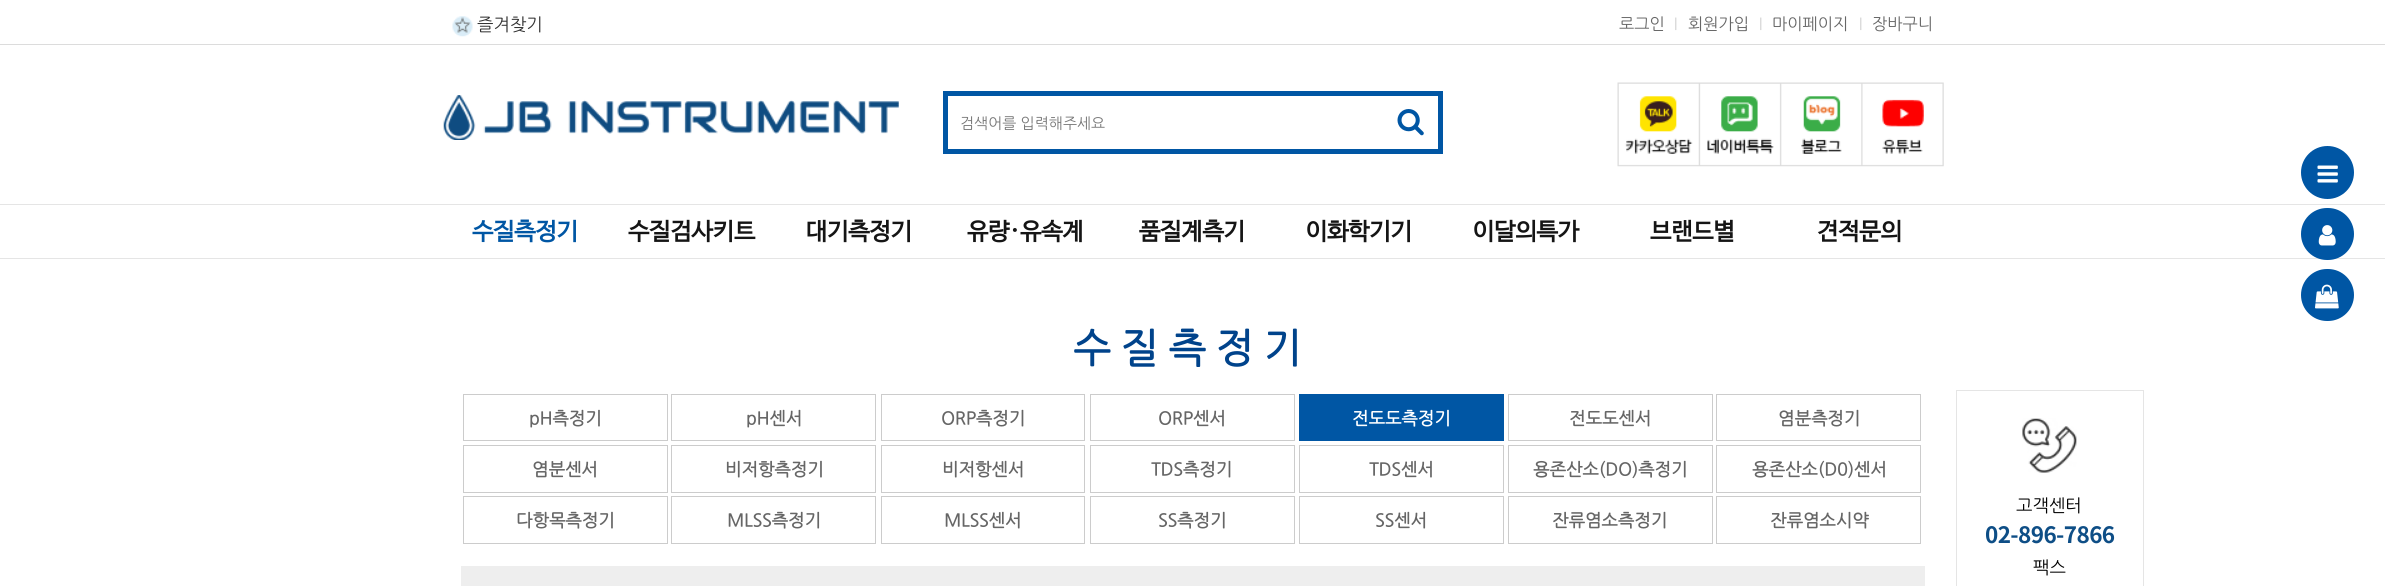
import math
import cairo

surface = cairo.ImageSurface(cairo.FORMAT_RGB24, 2385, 586)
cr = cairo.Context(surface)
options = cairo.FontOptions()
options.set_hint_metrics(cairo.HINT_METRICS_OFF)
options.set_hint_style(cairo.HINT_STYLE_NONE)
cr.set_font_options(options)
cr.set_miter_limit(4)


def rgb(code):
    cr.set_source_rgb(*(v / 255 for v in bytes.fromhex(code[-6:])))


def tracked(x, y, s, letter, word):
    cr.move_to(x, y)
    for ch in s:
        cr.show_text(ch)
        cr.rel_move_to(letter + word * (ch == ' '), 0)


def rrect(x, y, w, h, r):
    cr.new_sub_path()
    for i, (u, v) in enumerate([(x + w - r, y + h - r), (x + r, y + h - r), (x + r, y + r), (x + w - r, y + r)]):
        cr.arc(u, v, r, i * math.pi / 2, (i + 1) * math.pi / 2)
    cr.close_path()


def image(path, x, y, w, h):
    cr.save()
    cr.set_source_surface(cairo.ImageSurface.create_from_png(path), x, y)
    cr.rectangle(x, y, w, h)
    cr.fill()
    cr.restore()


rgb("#ffffff")
cr.paint()
rgb("#dcdcdc")
cr.rectangle(0, 44, 2385, 1)
cr.fill()
image("img/1.png", 452, 16, 21, 21)
image("img/2.png", 443, 95, 456, 45)
cr.rectangle(945.5, 93.5, 495, 58)
rgb("#0056a4")
cr.set_line_width(5)
cr.stroke()
image("img/3.png", 1397, 109, 27, 27)
image("img/4.png", 1617, 82, 327, 85)
rgb("#e5e5e5")
cr.rectangle(0, 204, 2385, 1)
cr.fill()
cr.rectangle(0, 258, 2385, 1)
cr.fill()
cr.rectangle(463.5, 394.5, 204, 46)
rgb("#cccccc")
cr.set_line_width(1)
cr.stroke()
cr.rectangle(671.5, 394.5, 204, 46)
cr.stroke()
cr.rectangle(881.5, 394.5, 203, 46)
cr.stroke()
cr.rectangle(1090.5, 394.5, 204, 46)
cr.stroke()
rgb("#0056a4")
cr.rectangle(1299, 394, 205, 47)
cr.fill()
cr.rectangle(1508.5, 394.5, 204, 46)
rgb("#cccccc")
cr.stroke()
cr.rectangle(1716.5, 394.5, 204, 46)
cr.stroke()
cr.rectangle(463.5, 445.5, 204, 47)
cr.stroke()
cr.rectangle(671.5, 445.5, 204, 47)
cr.stroke()
cr.rectangle(881.5, 445.5, 203, 47)
cr.stroke()
cr.rectangle(1090.5, 445.5, 204, 47)
cr.stroke()
cr.rectangle(1299.5, 445.5, 204, 47)
cr.stroke()
cr.rectangle(1508.5, 445.5, 204, 47)
cr.stroke()
cr.rectangle(1716.5, 445.5, 204, 47)
cr.stroke()
cr.rectangle(463.5, 496.5, 204, 47)
cr.stroke()
cr.rectangle(671.5, 496.5, 204, 47)
cr.stroke()
cr.rectangle(881.5, 496.5, 203, 47)
cr.stroke()
cr.rectangle(1090.5, 496.5, 204, 47)
cr.stroke()
cr.rectangle(1299.5, 496.5, 204, 47)
cr.stroke()
cr.rectangle(1508.5, 496.5, 204, 47)
cr.stroke()
cr.rectangle(1716.5, 496.5, 204, 47)
cr.stroke()
rgb("#eeeeee")
cr.rectangle(461, 566, 1464, 20)
cr.fill()
cr.rectangle(1956.5, 390.5, 187, 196)
rgb("#e5e5e5")
cr.stroke()
image("img/5.png", 2022, 418, 55, 55)
rgb("#0056a4")
cr.arc(2327.5, 172.5, 26.5, 0, 2 * math.pi)
cr.fill()
image("img/6.png", 2317, 165, 21, 18)
rrect(2301, 208, 53, 52, 26)
cr.fill()
image("img/7.png", 2318, 225, 18, 21)
rrect(2301, 269, 53, 52, 26)
cr.fill()
image("img/8.png", 2315, 284, 24, 25)
cr.select_font_face("NanumGothic")
cr.set_font_size(17.5)
rgb("#333333")
cr.move_to(477, 30)
cr.show_text("즐겨찾기")
cr.set_font_size(16.25)
rgb("#666666")
cr.move_to(1619, 29)
cr.show_text("로그인")
cr.set_font_size(14)
rgb("#cccccc")
cr.move_to(1674, 28)
cr.show_text("|")
cr.set_font_size(16.25)
rgb("#666666")
cr.move_to(1688, 29)
cr.show_text("회원가입")
cr.set_font_size(14)
rgb("#cccccc")
cr.move_to(1759, 28)
cr.show_text("|")
cr.set_font_size(16.25)
rgb("#666666")
cr.move_to(1772, 29)
cr.show_text("마이페이지")
cr.set_font_size(14)
rgb("#cccccc")
cr.move_to(1859, 28)
cr.show_text("|")
cr.set_font_size(16.25)
rgb("#666666")
cr.move_to(1872, 29)
cr.show_text("장바구니")
cr.set_font_size(15)
rgb("#777777")
cr.move_to(960, 128)
cr.show_text("검색어를 입력해주세요")
cr.select_font_face("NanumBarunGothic", cairo.FONT_SLANT_NORMAL, cairo.FONT_WEIGHT_BOLD)
cr.set_font_size(23.75)
rgb("#0056a4")
cr.move_to(472, 239)
cr.show_text("수질측정기")
rgb("#151515")
for x, y, s in [
    (628, 239, "수질검사키트"),
    (806, 239, "대기측정기"),
    (967, 239, "유량·유속계"),
    (1139, 239, "품질계측기"),
    (1306, 239, "이화학기기"),
    (1473, 239, "이달의특가"),
    (1650, 239, "브랜드별"),
    (1817, 239, "견적문의"),
]:
    cr.move_to(x, y)
    cr.show_text(s)
cr.select_font_face("NanumGothic", cairo.FONT_SLANT_NORMAL, cairo.FONT_WEIGHT_BOLD)
cr.set_font_size(40)
rgb("#00438b")
tracked(1073, 361, "수질측정기", 10, 0)
cr.set_font_size(17.5)
rgb("#666666")
for x, y, s in [
    (529, 424, "pH측정기"),
    (746, 424, "pH센서"),
    (941, 424, "ORP측정기"),
    (1158, 424, "ORP센서"),
]:
    cr.move_to(x, y)
    cr.show_text(s)
rgb("#ffffff")
cr.move_to(1352, 424)
cr.show_text("전도도측정기")
rgb("#666666")
for x, y, s in [
    (1569, 424, "전도도센서"),
    (1778, 424, "염분측정기"),
    (532, 475, "염분센서"),
    (725, 475, "비저항측정기"),
    (942, 475, "비저항센서"),
    (1151, 475, "TDS측정기"),
    (1369, 475, "TDS센서"),
    (1533, 475, "용존산소(DO)측정기"),
    (1752, 475, "용존산소(D0)센서"),
    (516, 526, "다항목측정기"),
    (727, 526, "MLSS측정기"),
    (944, 526, "MLSS센서"),
    (1158, 526, "SS측정기"),
    (1375, 526, "SS센서"),
    (1552, 526, "잔류염소측정기"),
    (1770, 526, "잔류염소시약"),
]:
    cr.move_to(x, y)
    cr.show_text(s)
cr.select_font_face("NanumGothic")
rgb("#000000")
cr.move_to(2016, 511)
cr.show_text("고객센터")
cr.select_font_face("Noto Sans KR", cairo.FONT_SLANT_NORMAL, cairo.FONT_WEIGHT_BOLD)
cr.set_font_size(22.5)
rgb("#0e4e86")
tracked(1985, 543, "02-896-7866", -0.6, 0)
cr.select_font_face("NanumGothic")
cr.set_font_size(17.5)
rgb("#000000")
cr.move_to(2033, 573)
cr.show_text("팩스")
surface.write_to_png("page.png")
